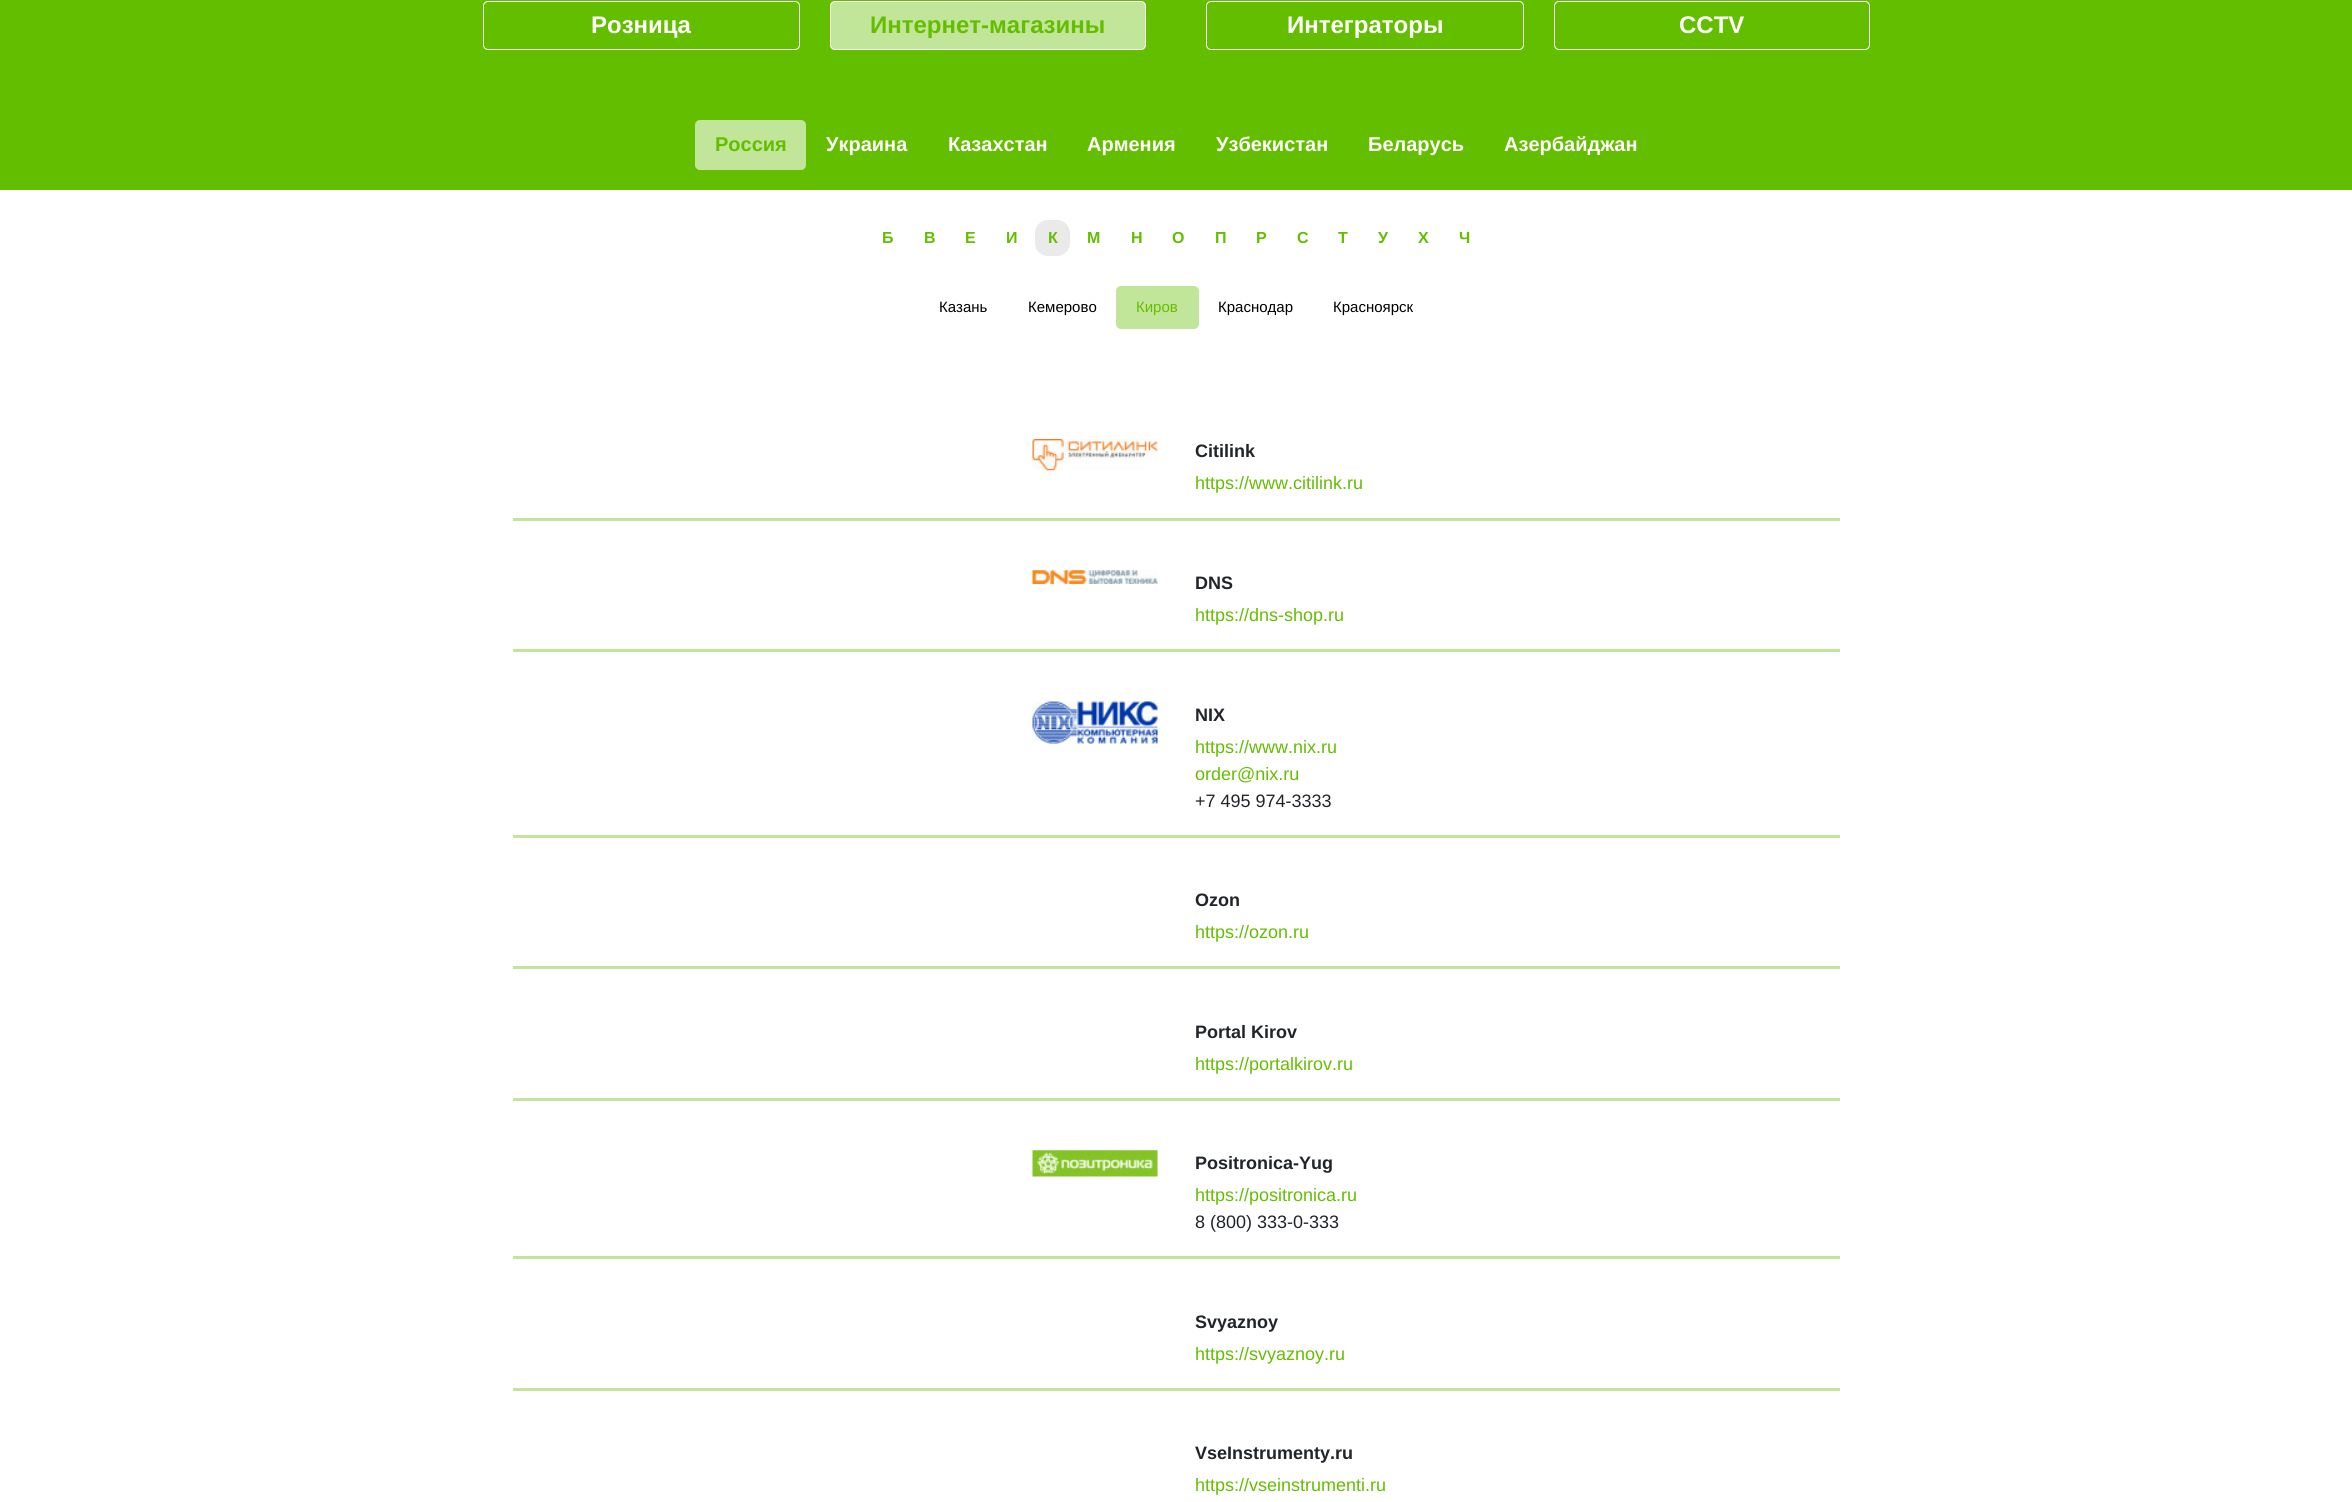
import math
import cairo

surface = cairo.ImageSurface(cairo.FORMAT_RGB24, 2352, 1502)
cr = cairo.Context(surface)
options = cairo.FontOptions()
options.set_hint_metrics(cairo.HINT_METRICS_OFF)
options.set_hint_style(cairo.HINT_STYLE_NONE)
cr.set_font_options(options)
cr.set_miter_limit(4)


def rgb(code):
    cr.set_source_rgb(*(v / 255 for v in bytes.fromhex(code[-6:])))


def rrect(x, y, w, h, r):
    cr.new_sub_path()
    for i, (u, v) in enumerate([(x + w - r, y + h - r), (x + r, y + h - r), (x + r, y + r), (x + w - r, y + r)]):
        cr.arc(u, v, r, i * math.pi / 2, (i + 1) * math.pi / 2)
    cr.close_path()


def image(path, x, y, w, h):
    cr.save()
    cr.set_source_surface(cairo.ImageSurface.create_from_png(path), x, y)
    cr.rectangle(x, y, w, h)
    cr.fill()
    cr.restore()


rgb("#ffffff")
cr.paint()
rgb("#64be00")
cr.rectangle(0, 0, 2352, 190)
cr.fill()
rrect(483.5, 1.5, 316, 48, 4.5)
rgb("#ffffff")
cr.set_line_width(1)
cr.stroke()
rgb("#c1e599")
rrect(830.5, 1.5, 315, 48, 4.5)
cr.fill_preserve()
rgb("#ffffff")
cr.stroke()
rrect(1206.5, 1.5, 317, 48, 4.5)
cr.stroke()
rrect(1554.5, 1.5, 315, 48, 4.5)
cr.stroke()
rgb("#c1e599")
rrect(695, 120, 111, 50, 5)
cr.fill()
rgb("#eaeaea")
rrect(1035, 220, 35, 36, 13)
cr.fill()
rgb("#c1e599")
rrect(1116, 286, 83, 43, 5)
cr.fill()
cr.rectangle(513, 518, 1327, 3)
cr.fill()
image("img/1.png", 1032, 439, 126, 32)
cr.rectangle(513, 649, 1327, 3)
cr.fill()
image("img/2.png", 1032, 570, 126, 14)
cr.rectangle(513, 835, 1327, 3)
cr.fill()
image("img/3.png", 1032, 701, 126, 43)
for x, y, w, h, color in [
    (513, 966, 1327, 3, "#c1e599"),
    (513, 1098, 1327, 3, "#c1e599"),
    (513, 1256, 1327, 3, "#c1e599"),
]:
    rgb(color)
    cr.rectangle(x, y, w, h)
    cr.fill()
image("img/4.png", 1032, 1150, 126, 27)
cr.rectangle(513, 1388, 1327, 3)
cr.fill()
cr.select_font_face("Liberation Sans", cairo.FONT_SLANT_NORMAL, cairo.FONT_WEIGHT_BOLD)
cr.set_font_size(24)
rgb("#ffffff")
cr.move_to(591, 33)
cr.show_text("Розница")
rgb("#64be00")
cr.move_to(870, 33)
cr.show_text("Интернет-магазины")
rgb("#ffffff")
cr.move_to(1287, 33)
cr.show_text("Интеграторы")
cr.move_to(1679, 33)
cr.show_text("CCTV")
cr.set_font_size(20)
rgb("#64be00")
cr.move_to(715, 151)
cr.show_text("Россия")
rgb("#ffffff")
for x, y, s in [
    (826, 151, "Украина"),
    (948, 151, "Казахстан"),
    (1087, 151, "Армения"),
    (1216, 151, "Узбекистан"),
    (1368, 151, "Беларусь"),
    (1504, 151, "Азербайджан"),
]:
    cr.move_to(x, y)
    cr.show_text(s)
cr.set_font_size(16)
rgb("#64be00")
for x, y, s in [
    (882, 243, "Б"),
    (924, 243, "В"),
    (965, 243, "Е"),
    (1006, 243, "И"),
    (1048, 243, "К"),
    (1087, 243, "М"),
    (1131, 243, "Н"),
    (1172, 243, "О"),
    (1215, 243, "П"),
    (1256, 243, "Р"),
    (1297, 243, "С"),
    (1338, 243, "Т"),
    (1378, 243, "У"),
    (1418, 243, "Х"),
    (1459, 243, "Ч"),
]:
    cr.move_to(x, y)
    cr.show_text(s)
cr.select_font_face("Liberation Sans")
cr.set_font_size(15)
rgb("#000000")
cr.move_to(939, 312)
cr.show_text("Казань")
cr.move_to(1028, 312)
cr.show_text("Кемерово")
rgb("#64be00")
cr.move_to(1136, 312)
cr.show_text("Киров")
rgb("#000000")
cr.move_to(1218, 312)
cr.show_text("Краснодар")
cr.move_to(1333, 312)
cr.show_text("Красноярск")
cr.select_font_face("Liberation Sans", cairo.FONT_SLANT_NORMAL, cairo.FONT_WEIGHT_BOLD)
cr.set_font_size(18)
rgb("#212529")
cr.move_to(1195, 457)
cr.show_text("Citilink")
cr.select_font_face("Liberation Sans")
rgb("#64be00")
cr.move_to(1195, 489)
cr.show_text("https://www.citilink.ru")
cr.select_font_face("Liberation Sans", cairo.FONT_SLANT_NORMAL, cairo.FONT_WEIGHT_BOLD)
rgb("#212529")
cr.move_to(1195, 589)
cr.show_text("DNS")
cr.select_font_face("Liberation Sans")
rgb("#64be00")
cr.move_to(1195, 621)
cr.show_text("https://dns-shop.ru")
cr.select_font_face("Liberation Sans", cairo.FONT_SLANT_NORMAL, cairo.FONT_WEIGHT_BOLD)
rgb("#212529")
cr.move_to(1195, 721)
cr.show_text("NIX")
cr.select_font_face("Liberation Sans")
rgb("#64be00")
cr.move_to(1195, 753)
cr.show_text("https://www.nix.ru")
cr.move_to(1195, 780)
cr.show_text("order@nix.ru")
rgb("#212529")
cr.move_to(1195, 807)
cr.show_text("+7 495 974-3333")
cr.select_font_face("Liberation Sans", cairo.FONT_SLANT_NORMAL, cairo.FONT_WEIGHT_BOLD)
cr.move_to(1195, 906)
cr.show_text("Ozon")
cr.select_font_face("Liberation Sans")
rgb("#64be00")
cr.move_to(1195, 938)
cr.show_text("https://ozon.ru")
cr.select_font_face("Liberation Sans", cairo.FONT_SLANT_NORMAL, cairo.FONT_WEIGHT_BOLD)
rgb("#212529")
cr.move_to(1195, 1038)
cr.show_text("Portal Kirov")
cr.select_font_face("Liberation Sans")
rgb("#64be00")
cr.move_to(1195, 1070)
cr.show_text("https://portalkirov.ru")
cr.select_font_face("Liberation Sans", cairo.FONT_SLANT_NORMAL, cairo.FONT_WEIGHT_BOLD)
rgb("#212529")
cr.move_to(1195, 1169)
cr.show_text("Positronica-Yug")
cr.select_font_face("Liberation Sans")
rgb("#64be00")
cr.move_to(1195, 1201)
cr.show_text("https://positronica.ru")
rgb("#212529")
cr.move_to(1195, 1228)
cr.show_text("8 (800) 333-0-333")
cr.select_font_face("Liberation Sans", cairo.FONT_SLANT_NORMAL, cairo.FONT_WEIGHT_BOLD)
cr.move_to(1195, 1328)
cr.show_text("Svyaznoy")
cr.select_font_face("Liberation Sans")
rgb("#64be00")
cr.move_to(1195, 1360)
cr.show_text("https://svyaznoy.ru")
cr.select_font_face("Liberation Sans", cairo.FONT_SLANT_NORMAL, cairo.FONT_WEIGHT_BOLD)
rgb("#212529")
cr.move_to(1195, 1459)
cr.show_text("VseInstrumenty.ru")
cr.select_font_face("Liberation Sans")
rgb("#64be00")
cr.move_to(1195, 1491)
cr.show_text("https://vseinstrumenti.ru")
surface.write_to_png("page.png")
